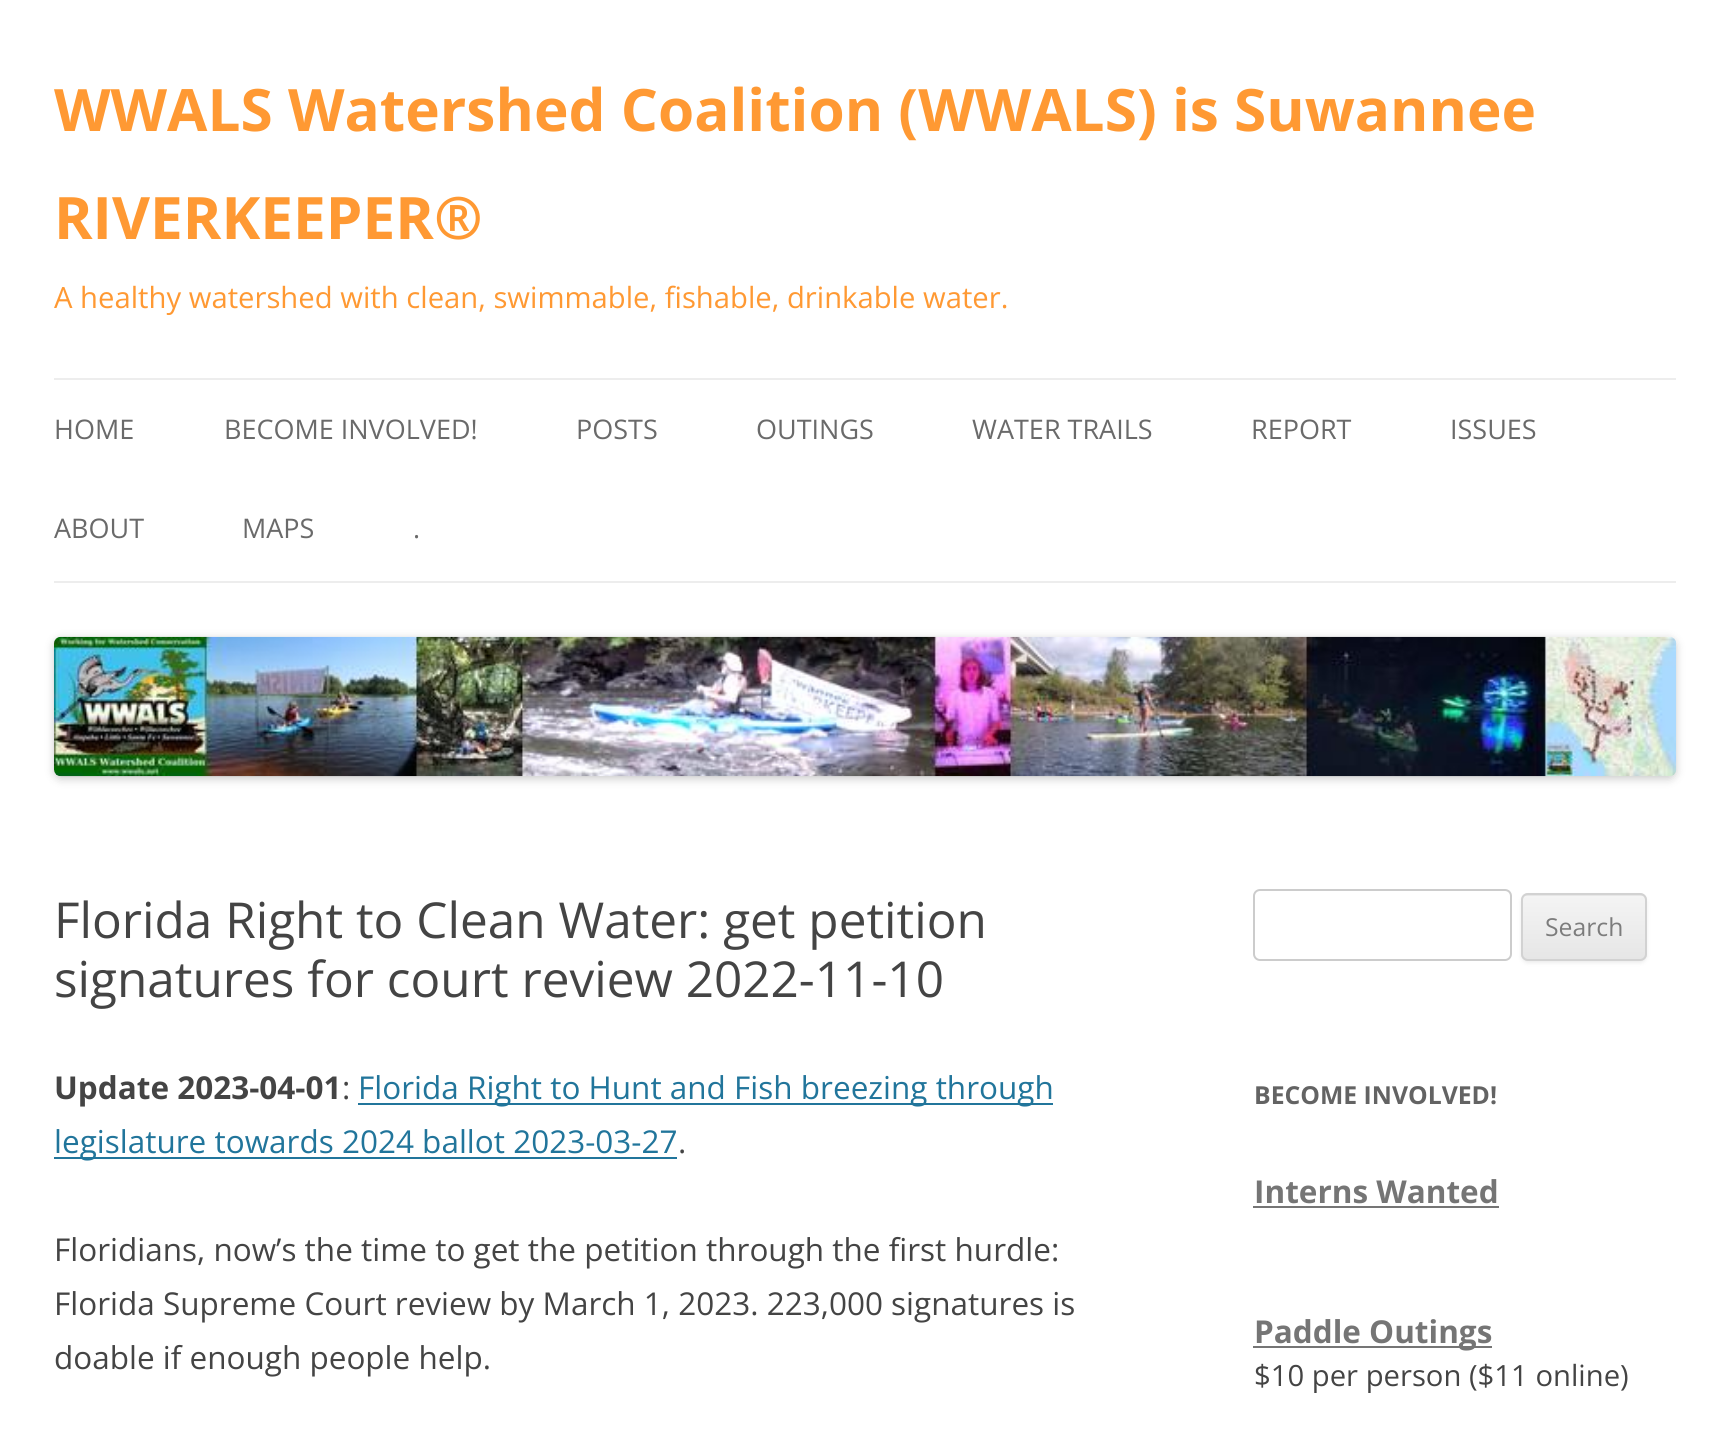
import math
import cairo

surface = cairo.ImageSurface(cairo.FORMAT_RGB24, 1729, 1454)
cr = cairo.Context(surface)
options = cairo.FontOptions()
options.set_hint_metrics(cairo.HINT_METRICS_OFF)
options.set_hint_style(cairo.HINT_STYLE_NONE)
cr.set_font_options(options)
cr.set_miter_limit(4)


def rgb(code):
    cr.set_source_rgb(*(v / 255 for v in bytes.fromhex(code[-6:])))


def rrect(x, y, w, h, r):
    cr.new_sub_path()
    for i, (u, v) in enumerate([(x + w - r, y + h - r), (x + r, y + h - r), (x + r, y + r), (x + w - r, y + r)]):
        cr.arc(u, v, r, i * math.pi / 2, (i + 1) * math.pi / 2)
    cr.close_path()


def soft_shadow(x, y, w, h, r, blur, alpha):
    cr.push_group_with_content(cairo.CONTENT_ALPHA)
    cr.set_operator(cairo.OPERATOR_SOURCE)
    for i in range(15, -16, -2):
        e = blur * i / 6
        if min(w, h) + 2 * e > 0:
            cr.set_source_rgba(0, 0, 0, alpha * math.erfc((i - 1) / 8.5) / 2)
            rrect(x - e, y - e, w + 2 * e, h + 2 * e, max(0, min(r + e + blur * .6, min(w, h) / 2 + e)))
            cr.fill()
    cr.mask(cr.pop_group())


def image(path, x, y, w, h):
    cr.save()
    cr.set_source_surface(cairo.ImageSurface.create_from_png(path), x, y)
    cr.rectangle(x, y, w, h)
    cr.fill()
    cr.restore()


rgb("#ffffff")
cr.paint()
rgb("#ededed")
cr.rectangle(54, 378, 1622, 2)
cr.fill()
cr.rectangle(54, 581, 1622, 2)
cr.fill()
rgb("#000000")
soft_shadow(54, 639, 1622, 140, 7, 4.5, 0.2)
image("img/1.png", 54, 636, 1623, 141)
rgb("#21759b")
cr.rectangle(358, 1103, 695, 2)
cr.fill()
cr.rectangle(54, 1157, 623, 2)
cr.fill()
rrect(1254, 890, 257, 70, 6)
rgb("#cccccc")
cr.stroke()
rgb("#404040")
soft_shadow(1521, 896, 126, 67, 7, 2, 0.1)
rgb("#e6e6e6")
rrect(1521, 893, 126, 68, 7)
cr.fill()
cr.save()
rrect(1521, 893, 126, 68, 7)
cr.clip()
gradient = cairo.LinearGradient(1584, 896, 1584, 959)
gradient.add_color_stop_rgba(0, 0.957, 0.957, 0.957, 1)
gradient.add_color_stop_rgba(1, 0.902, 0.902, 0.902, 1)
cr.set_source(gradient)
cr.rectangle(1521, 896, 126, 63)
cr.fill()
cr.restore()
rrect(1522, 894, 124, 66, 6)
rgb("#d2d2d2")
cr.stroke()
rgb("#757575")
cr.rectangle(1253, 1206, 246, 2)
cr.fill()
cr.rectangle(1253, 1346, 239, 2)
cr.fill()
cr.select_font_face("Open Sans", cairo.FONT_SLANT_NORMAL, cairo.FONT_WEIGHT_BOLD)
cr.set_font_size(58.5)
rgb("#ff9933")
cr.move_to(54, 131)
cr.show_text("WWALS Watershed Coalition (WWALS) is Suwannee")
cr.move_to(54, 239)
cr.show_text("RIVERKEEPER®")
cr.select_font_face("Open Sans")
cr.set_font_size(29.25)
cr.move_to(54, 308)
cr.show_text("A healthy watershed with clean, swimmable, fishable, drinkable water.")
cr.set_font_size(27)
rgb("#6a6a6a")
for x, y, s in [
    (54, 439, "HOME"),
    (224, 439, "BECOME INVOLVED!"),
    (576, 439, "POSTS"),
    (756, 439, "OUTINGS"),
    (972, 439, "WATER TRAILS"),
    (1251, 439, "REPORT"),
    (1450, 439, "ISSUES"),
    (54, 538, "ABOUT"),
    (242, 538, "MAPS"),
    (413, 538, "."),
]:
    cr.move_to(x, y)
    cr.show_text(s)
cr.set_font_size(49.5)
rgb("#444444")
cr.move_to(54, 938)
cr.show_text("Florida Right to Clean Water: get petition")
cr.move_to(54, 997)
cr.show_text("signatures for court review 2022-11-10")
cr.select_font_face("Open Sans", cairo.FONT_SLANT_NORMAL, cairo.FONT_WEIGHT_BOLD)
cr.set_font_size(31.5)
cr.move_to(54, 1099)
cr.show_text("Update 2023-04-01")
cr.select_font_face("Open Sans")
cr.move_to(342, 1099)
cr.show_text(":")
rgb("#21759b")
cr.move_to(358, 1099)
cr.show_text("Florida Right to Hunt and Fish breezing through")
cr.move_to(54, 1153)
cr.show_text("legislature towards 2024 ballot 2023-03-27")
rgb("#444444")
for x, y, s in [
    (678, 1153, "."),
    (54, 1261, "Floridians, now’s the time to get the petition through the first hurdle:"),
    (54, 1315, "Florida Supreme Court review by March 1, 2023. 223,000 signatures is"),
    (54, 1369, "doable if enough people help."),
]:
    cr.move_to(x, y)
    cr.show_text(s)
cr.set_font_size(24.75)
rgb("#7c7c7c")
cr.move_to(1545, 936)
cr.show_text("Search")
cr.select_font_face("Open Sans", cairo.FONT_SLANT_NORMAL, cairo.FONT_WEIGHT_BOLD)
rgb("#636363")
cr.move_to(1254, 1104)
cr.show_text("BECOME INVOLVED!")
cr.set_font_size(31.5)
rgb("#757575")
cr.move_to(1254, 1203)
cr.show_text("Interns Wanted")
cr.move_to(1254, 1343)
cr.show_text("Paddle Outings")
cr.select_font_face("Open Sans")
cr.set_font_size(29.25)
rgb("#444444")
cr.move_to(1254, 1386)
cr.show_text("$10 per person ($11 online)")
surface.write_to_png("page.png")
